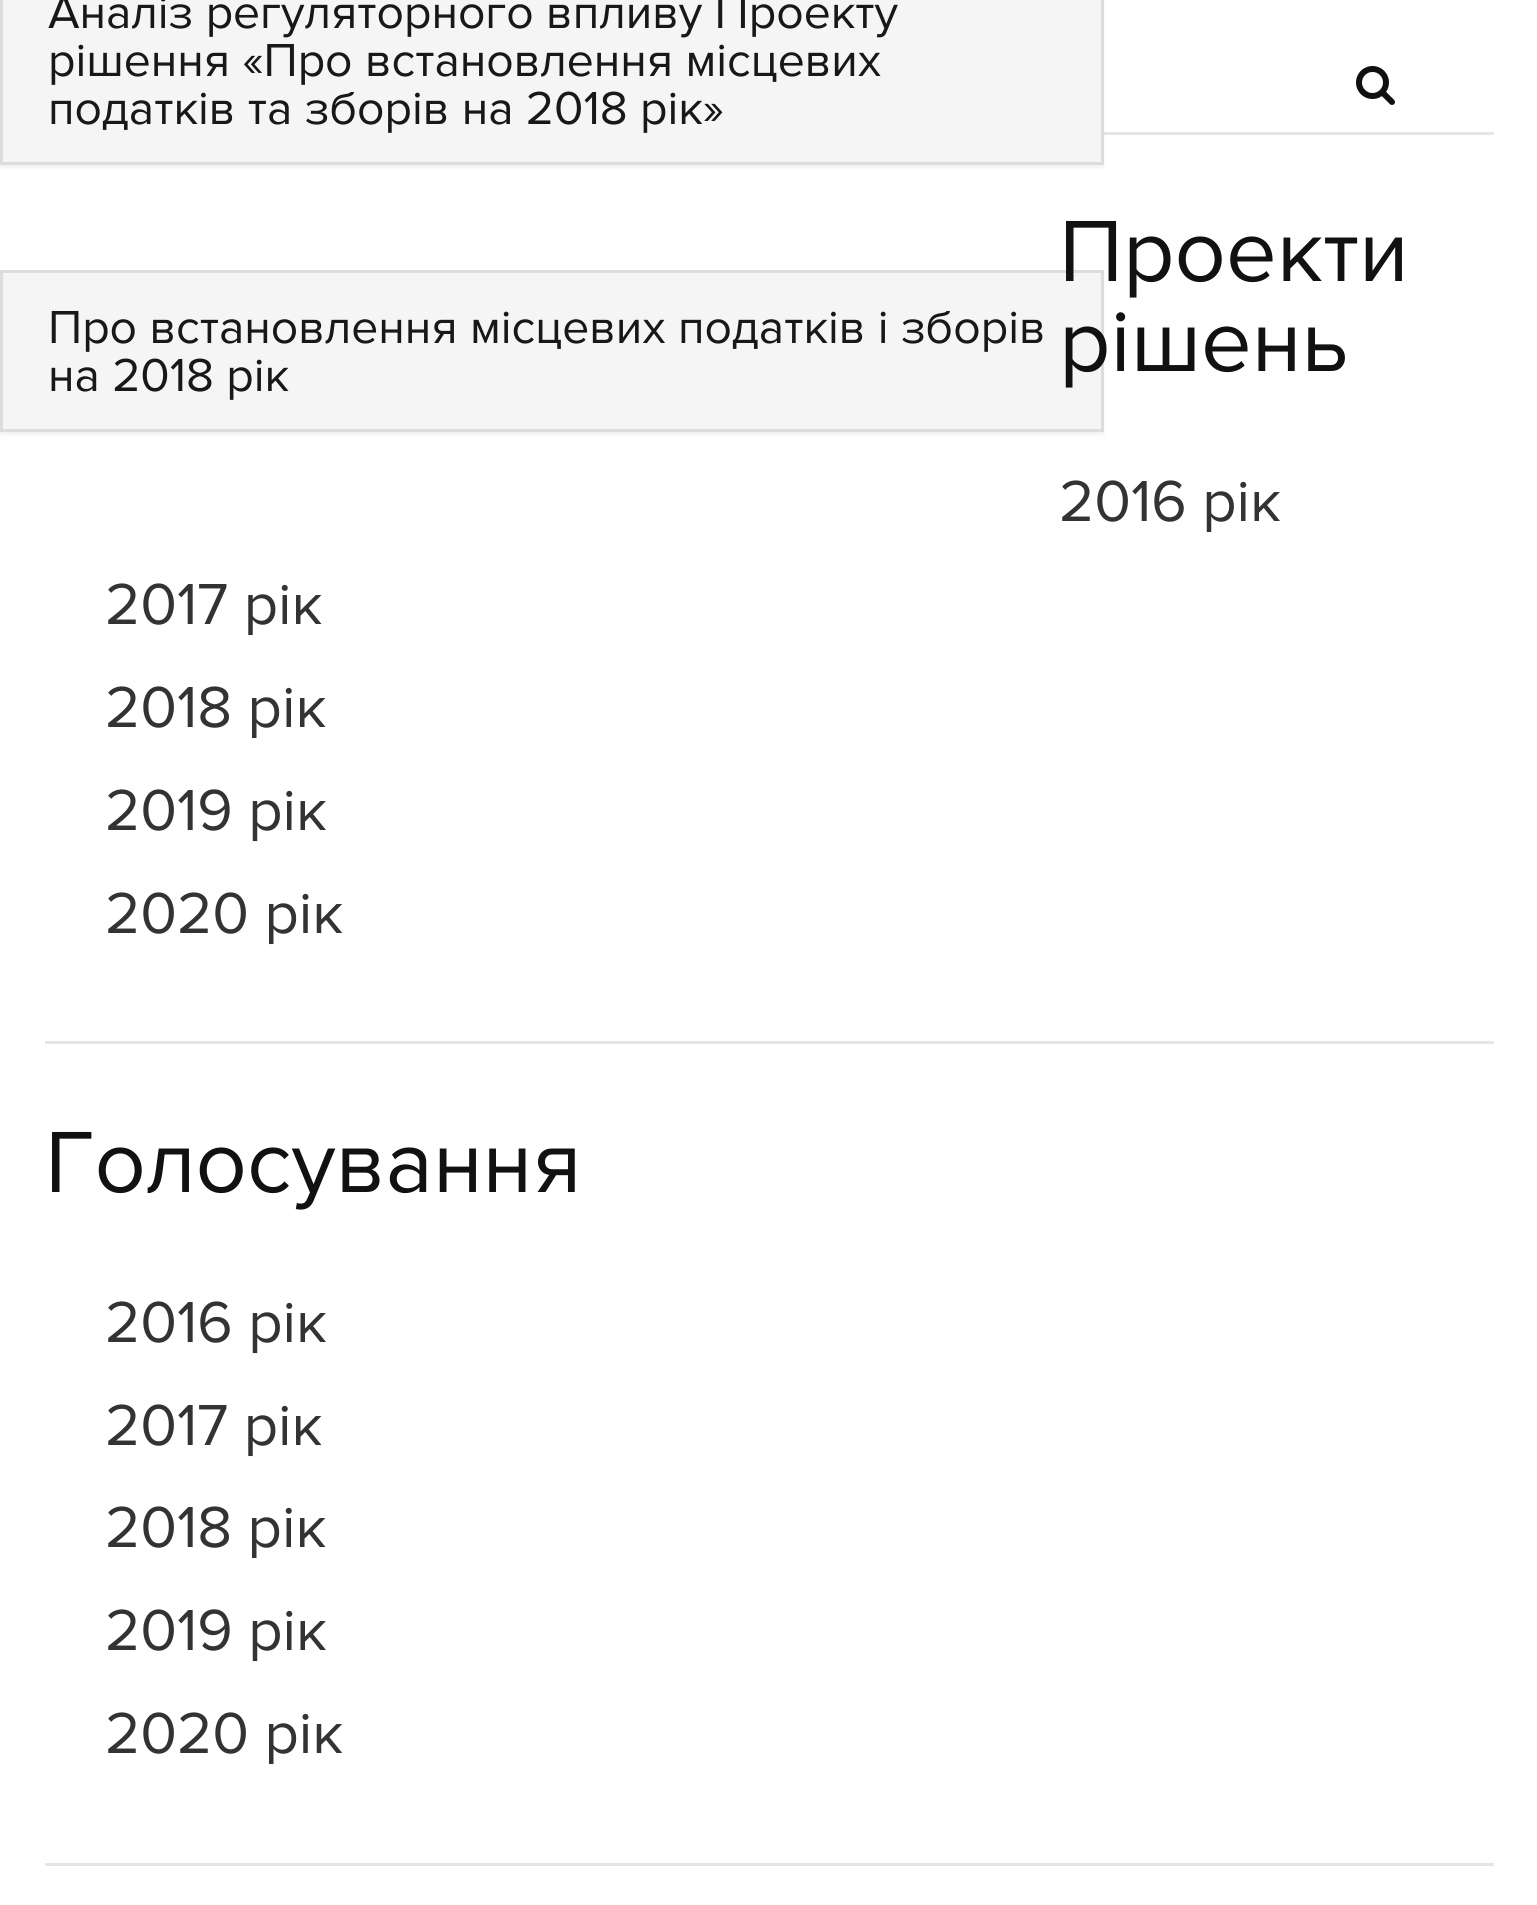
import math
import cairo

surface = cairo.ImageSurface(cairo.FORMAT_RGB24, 1537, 1905)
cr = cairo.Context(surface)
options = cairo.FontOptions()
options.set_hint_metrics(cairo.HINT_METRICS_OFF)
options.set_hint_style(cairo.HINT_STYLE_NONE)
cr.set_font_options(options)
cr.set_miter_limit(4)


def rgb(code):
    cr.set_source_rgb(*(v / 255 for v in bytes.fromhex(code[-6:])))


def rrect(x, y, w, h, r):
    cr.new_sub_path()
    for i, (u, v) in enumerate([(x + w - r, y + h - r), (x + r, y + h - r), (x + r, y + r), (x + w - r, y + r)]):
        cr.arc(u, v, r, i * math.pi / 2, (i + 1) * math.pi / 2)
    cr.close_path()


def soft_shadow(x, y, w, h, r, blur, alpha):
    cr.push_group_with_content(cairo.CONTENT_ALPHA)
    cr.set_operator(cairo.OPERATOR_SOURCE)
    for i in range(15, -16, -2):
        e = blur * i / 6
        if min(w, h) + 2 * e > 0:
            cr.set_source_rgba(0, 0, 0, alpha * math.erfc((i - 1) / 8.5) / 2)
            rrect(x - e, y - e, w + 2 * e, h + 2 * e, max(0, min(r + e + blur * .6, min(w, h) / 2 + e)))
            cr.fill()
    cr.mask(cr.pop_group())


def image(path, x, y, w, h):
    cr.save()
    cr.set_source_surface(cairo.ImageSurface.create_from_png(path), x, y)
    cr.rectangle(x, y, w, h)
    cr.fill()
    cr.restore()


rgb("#ffffff")
cr.paint()
rgb("#e5e5e5")
cr.rectangle(1104, 132, 390, 3)
cr.fill()
rgb("#000000")
soft_shadow(0, -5, 1104, 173, 0, 1.5, 0.05)
cr.rectangle(1.5, -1.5, 1101, 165)
rgb("#dddddd")
cr.set_line_width(3)
cr.stroke()
rgb("#f5f5f5")
cr.rectangle(3, 0, 1098, 162)
cr.fill()
rgb("#000000")
soft_shadow(0, 273, 1104, 162, 0, 1.5, 0.05)
cr.rectangle(1.5, 271.5, 1101, 159)
rgb("#dddddd")
cr.stroke()
for x, y, w, h, color in [
    (3, 276, 1098, 153, "#f5f5f5"),
    (45, 1041, 1449, 3, "#e5e5e5"),
    (45, 1863, 1449, 3, "#e5e5e5"),
]:
    rgb(color)
    cr.rectangle(x, y, w, h)
    cr.fill()
image("img/1.png", 1356, 66, 39, 39)
cr.select_font_face("Proxima Nova")
cr.set_font_size(48)
rgb("#181818")
for x, y, s in [
    (48, 28, "Аналіз регуляторного впливу Проекту"),
    (48, 76, "рішення «Про встановлення місцевих"),
    (48, 124, "податків та зборів на 2018 рік»"),
    (48, 343, "Про встановлення місцевих податків і зборів"),
    (48, 391, "на 2018 рік"),
]:
    cr.move_to(x, y)
    cr.show_text(s)
cr.set_font_size(90)
rgb("#111111")
cr.move_to(1059, 281)
cr.show_text("Проекти")
cr.move_to(1059, 371)
cr.show_text("рішень")
cr.set_font_size(60)
rgb("#333333")
for x, y, s in [
    (1059, 521, "2016 рік"),
    (105, 624, "2017 рік"),
    (105, 727, "2018 рік"),
    (105, 830, "2019 рік"),
    (105, 933, "2020 рік"),
]:
    cr.move_to(x, y)
    cr.show_text(s)
cr.set_font_size(90)
rgb("#111111")
cr.move_to(45, 1192)
cr.show_text("Голосування")
cr.set_font_size(60)
rgb("#333333")
for x, y, s in [
    (105, 1342, "2016 рік"),
    (105, 1445, "2017 рік"),
    (105, 1547, "2018 рік"),
    (105, 1650, "2019 рік"),
    (105, 1753, "2020 рік"),
]:
    cr.move_to(x, y)
    cr.show_text(s)
surface.write_to_png("page.png")
